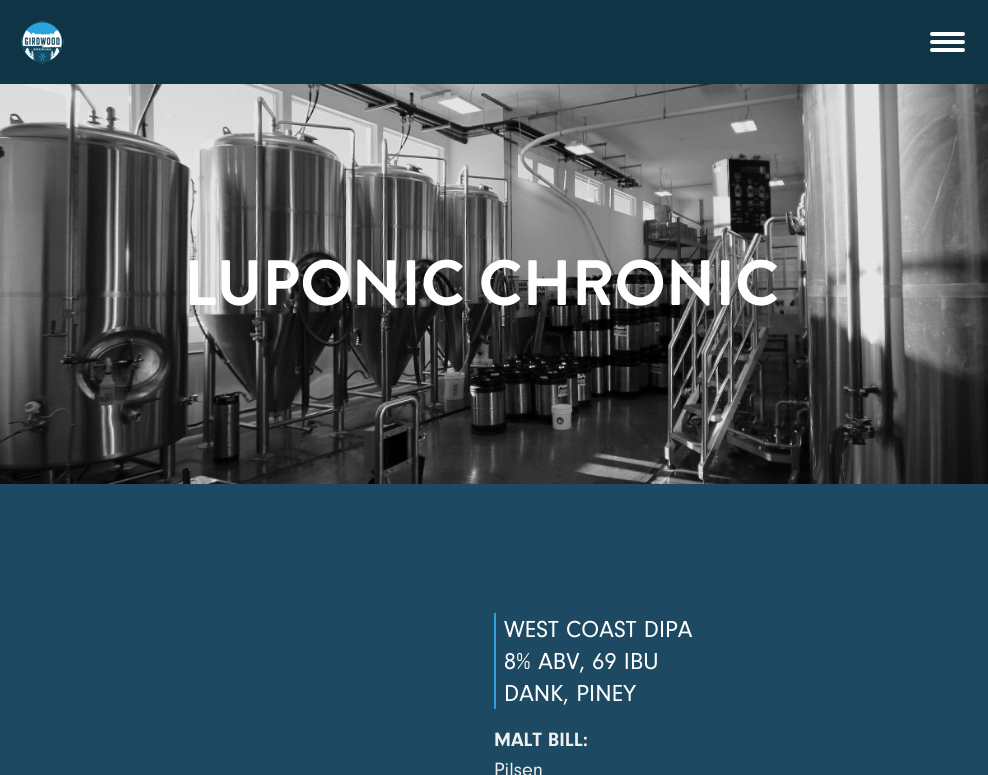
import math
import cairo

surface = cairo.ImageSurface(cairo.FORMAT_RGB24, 988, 775)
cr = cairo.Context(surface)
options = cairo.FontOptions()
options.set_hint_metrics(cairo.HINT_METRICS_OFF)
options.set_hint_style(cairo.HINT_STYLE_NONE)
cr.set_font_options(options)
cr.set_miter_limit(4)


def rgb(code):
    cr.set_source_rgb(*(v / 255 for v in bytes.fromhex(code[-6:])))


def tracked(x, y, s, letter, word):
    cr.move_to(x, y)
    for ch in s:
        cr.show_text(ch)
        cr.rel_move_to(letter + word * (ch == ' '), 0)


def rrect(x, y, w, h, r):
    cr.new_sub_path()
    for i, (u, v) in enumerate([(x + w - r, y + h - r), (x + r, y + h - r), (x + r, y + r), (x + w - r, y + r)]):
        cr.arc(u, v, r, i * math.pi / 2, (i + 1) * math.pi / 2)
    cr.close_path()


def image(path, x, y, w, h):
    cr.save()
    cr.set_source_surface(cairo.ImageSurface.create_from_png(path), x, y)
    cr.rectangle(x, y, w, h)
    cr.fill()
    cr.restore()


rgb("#ffffff")
cr.paint()
rgb("#0e3445")
cr.rectangle(0, 0, 988, 84)
cr.fill()
image("img/1.png", 21, 20, 43, 44)
rgb("#ffffff")
rrect(930, 32, 35, 4, 2)
cr.fill()
rrect(930, 40, 35, 4, 2)
cr.fill()
rrect(930, 48, 35, 4, 2)
cr.fill()
image("img/2.png", 0, 84, 988, 400)
rgb("#1d4a62")
cr.rectangle(0, 484, 988, 291)
cr.fill()
rgb("#2aa4dd")
cr.rectangle(494, 613, 2, 96)
cr.fill()
cr.select_font_face("Brandon Grotesque", cairo.FONT_SLANT_NORMAL, cairo.FONT_WEIGHT_BOLD)
cr.set_font_size(64)
rgb("#ffffff")
cr.move_to(184, 305)
cr.show_text("LUPONIC CHRONIC")
cr.select_font_face("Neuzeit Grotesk")
cr.set_font_size(24)
for x, y, s in [
    (504, 637, "WEST COAST DIPA"),
    (504, 669, "8% ABV, 69 IBU"),
    (504, 701, "DANK, PINEY"),
]:
    tracked(x, y, s, 0.1, 0)
cr.select_font_face("Neuzeit Grotesk", cairo.FONT_SLANT_NORMAL, cairo.FONT_WEIGHT_BOLD)
cr.set_font_size(20)
rgb("#efefef")
cr.move_to(494, 746)
cr.show_text("MALT BILL:")
cr.select_font_face("Neuzeit Grotesk")
cr.move_to(494, 776)
cr.show_text("Pilsen")
surface.write_to_png("page.png")
